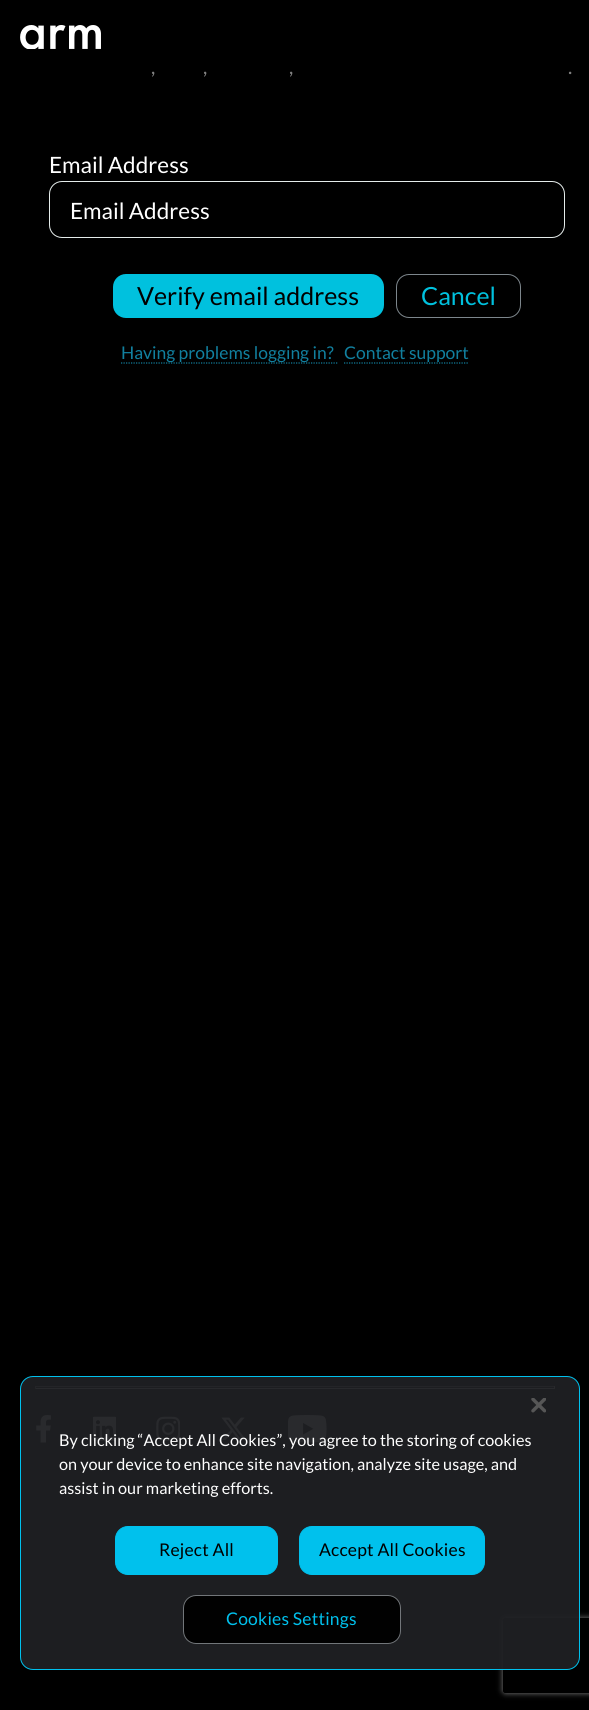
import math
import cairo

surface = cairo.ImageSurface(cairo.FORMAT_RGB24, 589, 1710)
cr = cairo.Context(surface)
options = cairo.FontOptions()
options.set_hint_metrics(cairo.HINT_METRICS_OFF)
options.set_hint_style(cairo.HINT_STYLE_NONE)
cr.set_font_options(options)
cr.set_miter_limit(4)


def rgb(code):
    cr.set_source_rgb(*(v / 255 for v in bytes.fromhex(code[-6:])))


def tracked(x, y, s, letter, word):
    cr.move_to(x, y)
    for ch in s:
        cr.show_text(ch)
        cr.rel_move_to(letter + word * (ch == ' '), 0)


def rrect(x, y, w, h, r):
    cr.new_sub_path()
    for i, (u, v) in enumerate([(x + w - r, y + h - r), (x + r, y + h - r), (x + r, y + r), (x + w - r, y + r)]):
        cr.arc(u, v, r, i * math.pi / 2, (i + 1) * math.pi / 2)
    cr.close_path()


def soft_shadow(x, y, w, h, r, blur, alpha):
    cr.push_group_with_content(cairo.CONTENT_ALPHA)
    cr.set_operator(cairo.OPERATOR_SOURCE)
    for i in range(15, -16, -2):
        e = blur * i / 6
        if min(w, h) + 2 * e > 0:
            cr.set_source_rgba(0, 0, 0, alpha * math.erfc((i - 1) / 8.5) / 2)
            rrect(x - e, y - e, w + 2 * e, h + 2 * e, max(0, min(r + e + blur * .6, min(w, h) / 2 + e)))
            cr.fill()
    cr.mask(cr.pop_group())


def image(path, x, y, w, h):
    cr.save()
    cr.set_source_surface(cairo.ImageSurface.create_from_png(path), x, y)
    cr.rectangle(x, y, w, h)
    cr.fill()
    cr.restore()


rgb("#000000")
cr.paint()
soft_shadow(0, 4, 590, 71, 0, 4, 0.5)
image("img/1.png", 20, 25, 81, 24)
rrect(49.5, 181.5, 515, 56, 12.5)
rgb("#e5eceb")
cr.set_line_width(1)
cr.stroke()
rgb("#00c1de")
rrect(113, 274, 271, 44, 13)
cr.fill()
rrect(396.5, 274.5, 124, 43, 12.5)
rgb("#7d868c")
cr.stroke()
cr.new_path()
cr.move_to(121, 363)
cr.line_to(337.5, 363)
rgb("#11809f")
cr.set_line_width(1.2)
cr.set_dash([1.25, 1.25])
cr.stroke()
cr.new_path()
cr.move_to(344, 363)
cr.line_to(469, 363)
cr.stroke()
for x, y, w, h, color in [
    (35, 1386, 520, 1, "#9f9f9f"),
    (554, 1386, 1, 3, "#eeeeee"),
    (35, 1388, 520, 1, "#eeeeee"),
    (35, 1386, 1, 3, "#9f9f9f"),
]:
    rgb(color)
    cr.rectangle(x, y, w, h)
    cr.fill()
image("img/2.png", 36, 1415, 15, 28)
image("img/3.png", 93, 1416, 23, 25)
image("img/4.png", 156, 1416, 24, 25)
image("img/5.png", 221, 1417, 25, 23)
image("img/6.png", 288, 1415, 39, 28)
cr.save()
cr.set_fill_rule(cairo.FILL_RULE_EVEN_ODD)
cr.new_path()
cr.move_to(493, 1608)
cr.line_to(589, 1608)
cr.line_to(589, 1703)
cr.line_to(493, 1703)
cr.close_path()
cr.move_to(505.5, 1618)
cr.line_to(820.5, 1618)
cr.curve_to(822, 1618, 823, 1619, 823, 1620.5)
cr.line_to(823, 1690.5)
cr.curve_to(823, 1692, 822, 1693, 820.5, 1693)
cr.line_to(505.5, 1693)
cr.curve_to(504, 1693, 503, 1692, 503, 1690.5)
cr.line_to(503, 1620.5)
cr.curve_to(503, 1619, 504, 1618, 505.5, 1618)
cr.close_path()
cr.clip()
rgb("#808080")
soft_shadow(503, 1618, 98, 75, 2.5, 3, 1)
cr.restore()
cr.set_source_rgba(0.122, 0.125, 0.137, 0.95)
rrect(20.5, 1376.5, 559, 293, 12.5)
cr.fill_preserve()
rgb("#00c1ed")
cr.set_line_width(1)
cr.set_dash([])
cr.stroke()
image("img/7.png", 531, 1398, 15, 15)
rrect(115.5, 1526.5, 162, 48, 12.5)
cr.fill_preserve()
cr.stroke()
rrect(299.5, 1526.5, 185, 48, 12.5)
cr.fill_preserve()
cr.stroke()
rgb("#010101")
rrect(183, 1595, 218, 49, 13)
cr.fill()
rrect(183.5, 1595.5, 217, 48, 12.5)
cr.set_source_rgba(0.639, 0.659, 0.682, 0.7)
cr.stroke()
cr.select_font_face("Lato")
cr.set_font_size(20)
rgb("#ffffff")
for x, y, s in [
    (151, 74, ","),
    (203, 74, ","),
    (289, 74, ","),
    (568, 74, "."),
]:
    cr.move_to(x, y)
    cr.show_text(s)
gradient = cairo.LinearGradient(295, 0, 295, 150)
gradient.add_color_stop_rgba(0, 0, 0, 0, 1)
gradient.add_color_stop_rgba(0.39, 0, 0, 0, 0.65)
gradient.add_color_stop_rgba(0.62, 0, 0, 0, 0.28)
gradient.add_color_stop_rgba(0.76, 0, 0, 0, 0.13)
gradient.add_color_stop_rgba(0.88, 0, 0, 0, 0.03)
gradient.add_color_stop_rgba(1, 0, 0, 0, 0)
cr.set_source(gradient)
cr.rectangle(152, 71, 420, 6)
cr.fill()
cr.set_font_size(22.5)
rgb("#ffffff")
cr.move_to(49, 173)
cr.show_text("Email Address")
cr.move_to(70, 219)
cr.show_text("Email Address")
cr.set_font_size(25)
rgb("#000000")
cr.move_to(137, 305)
cr.show_text("Verify email address")
rgb("#00c1de")
cr.move_to(421, 305)
cr.show_text("Cancel")
cr.set_font_size(17.5)
rgb("#11809f")
cr.move_to(121, 359)
cr.show_text("Having problems logging in?")
cr.move_to(344, 359)
cr.show_text("Contact support")
cr.set_font_size(16.25)
rgb("#ffffff")
for x, y, s in [
    (59, 1446, "By clicking “Accept All Cookies”, you agree to the storing of cookies"),
    (59, 1470, "on your device to enhance site navigation, analyze site usage, and"),
    (59, 1494, "assist in our marketing efforts."),
]:
    cr.move_to(x, y)
    cr.show_text(s)
cr.set_font_size(17.5)
rgb("#000000")
tracked(159, 1556, "Reject All", 0.2, 0)
tracked(319, 1556, "Accept All Cookies", 0.2, 0)
rgb("#00c1ed")
tracked(226, 1625, "Cookies Settings", 0.2, 0)
surface.write_to_png("page.png")
